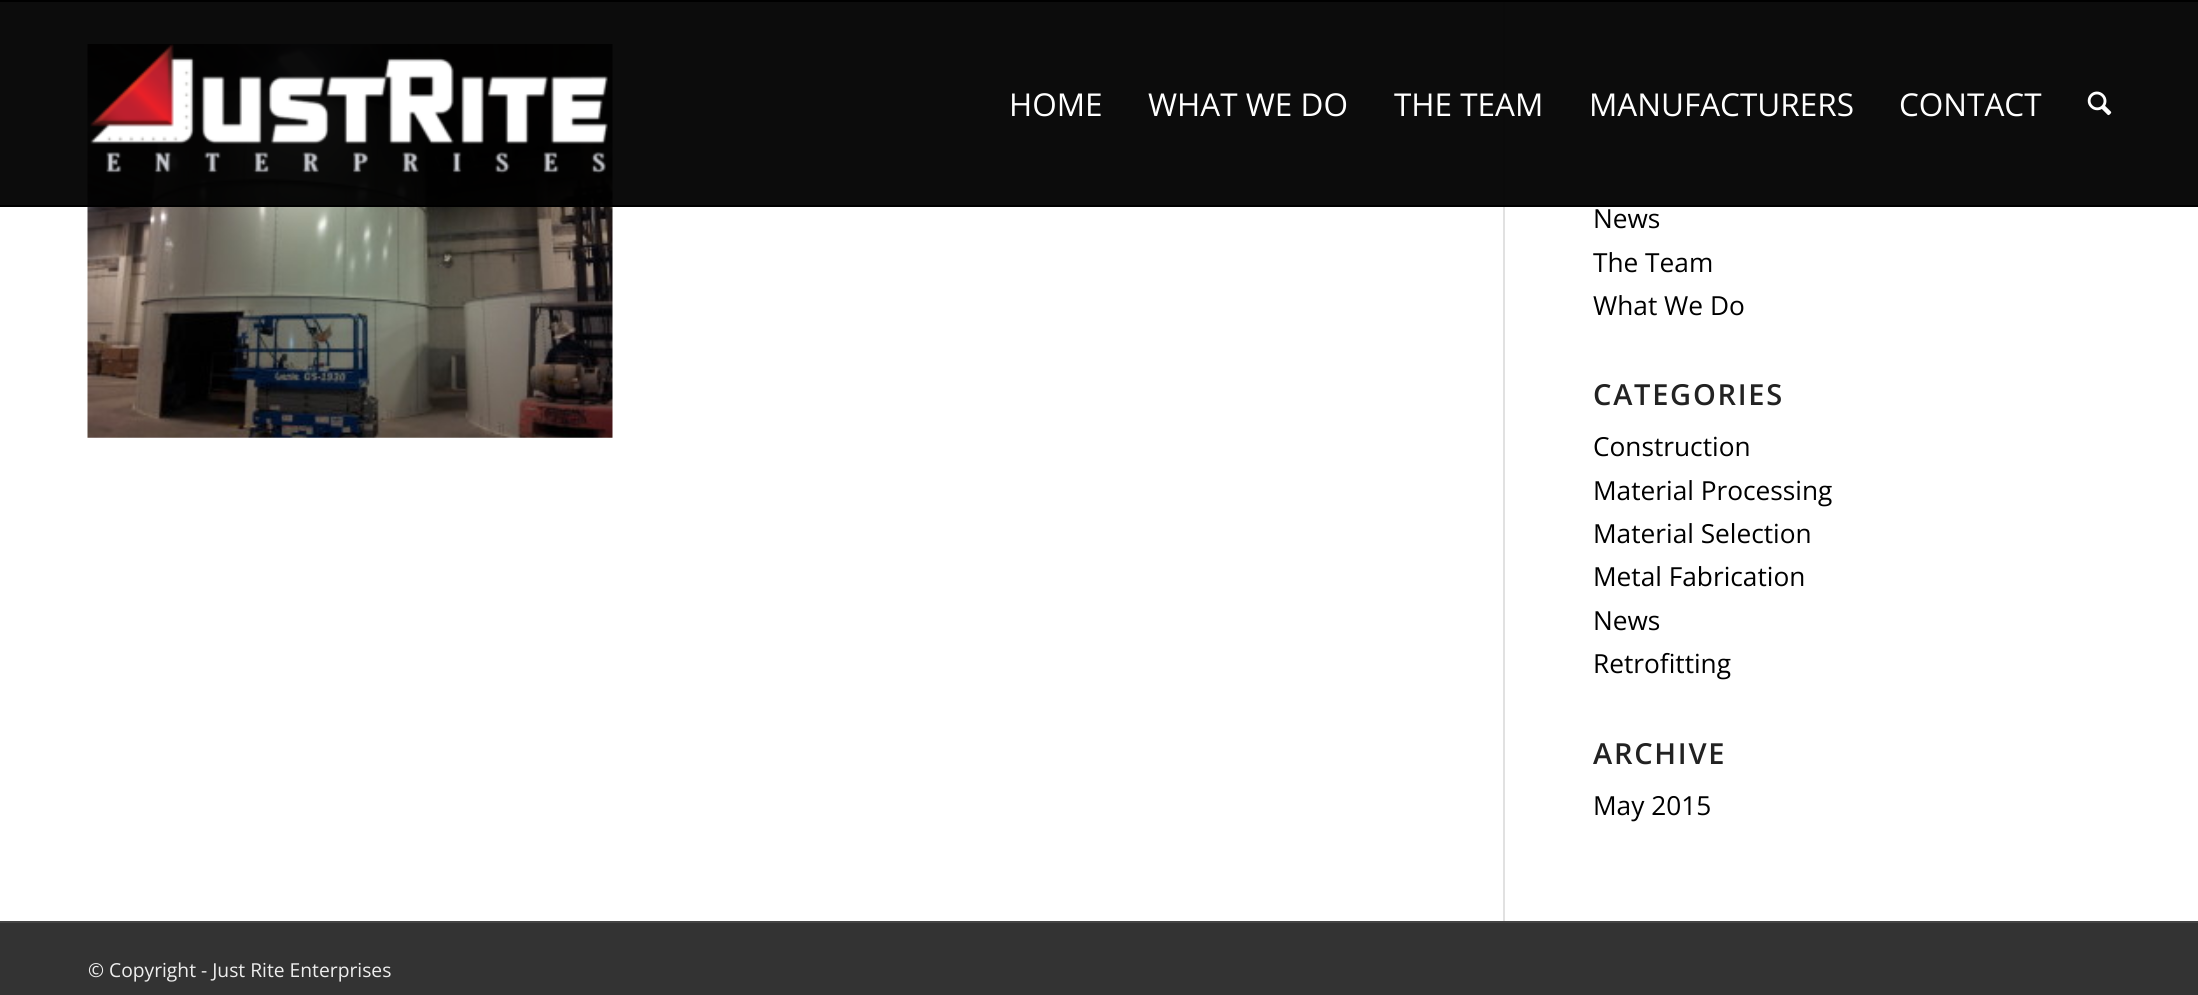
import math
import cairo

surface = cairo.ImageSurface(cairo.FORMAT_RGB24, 2198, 995)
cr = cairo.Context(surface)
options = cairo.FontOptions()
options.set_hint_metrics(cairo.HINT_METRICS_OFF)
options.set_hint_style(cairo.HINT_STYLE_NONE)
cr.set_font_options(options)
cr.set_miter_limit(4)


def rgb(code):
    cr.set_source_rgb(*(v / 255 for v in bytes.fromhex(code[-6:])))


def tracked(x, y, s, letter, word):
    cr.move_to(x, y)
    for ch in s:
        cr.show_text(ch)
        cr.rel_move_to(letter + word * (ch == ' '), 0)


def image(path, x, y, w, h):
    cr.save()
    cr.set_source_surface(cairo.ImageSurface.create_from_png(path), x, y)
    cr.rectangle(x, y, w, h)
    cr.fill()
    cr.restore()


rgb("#ffffff")
cr.paint()
image("img/3.png", 87, 44, 526, 394)
rgb("#e1e1e1")
cr.rectangle(1503, 0, 2, 922)
cr.fill()
cr.set_source_rgba(0, 0, 0, 0.95)
cr.rectangle(0, 2, 2198, 203)
cr.fill()
rgb("#000000")
cr.rectangle(0, 0, 2198, 2)
cr.rectangle(0, 205, 2198, 2)
cr.fill()
image("img/1.png", 90, 44, 518, 130)
image("img/2.png", 2087, 91, 25, 25)
rgb("#333333")
cr.rectangle(0, 923, 2198, 72)
cr.fill()
rgb("#444444")
cr.rectangle(0, 921, 2198, 2)
cr.fill()
cr.select_font_face("Open Sans")
cr.set_font_size(31.5)
rgb("#ffffff")
for x, y, s in [
    (1009, 116, "HOME"),
    (1148, 116, "WHAT WE DO"),
    (1394, 116, "THE TEAM"),
    (1589, 116, "MANUFACTURERS"),
    (1899, 116, "CONTACT"),
]:
    cr.move_to(x, y)
    cr.show_text(s)
cr.set_font_size(26.25)
rgb("#000000")
for x, y, s in [
    (1593, 228, "News"),
    (1593, 272, "The Team"),
    (1593, 315, "What We Do"),
]:
    cr.move_to(x, y)
    cr.show_text(s)
cr.select_font_face("Open Sans SemiBold")
cr.set_font_size(29)
rgb("#222222")
tracked(1593, 405, "CATEGORIES", 1.75, 0)
cr.select_font_face("Open Sans")
cr.set_font_size(26.25)
rgb("#000000")
for x, y, s in [
    (1593, 456, "Construction"),
    (1593, 500, "Material Processing"),
    (1593, 543, "Material Selection"),
    (1593, 586, "Metal Fabrication"),
    (1593, 630, "News"),
    (1593, 673, "Retrofitting"),
]:
    cr.move_to(x, y)
    cr.show_text(s)
cr.select_font_face("Open Sans SemiBold")
cr.set_font_size(29)
rgb("#222222")
tracked(1593, 764, "ARCHIVE", 1.75, 0)
cr.select_font_face("Open Sans")
cr.set_font_size(26.25)
rgb("#000000")
cr.move_to(1593, 815)
cr.show_text("May 2015")
cr.set_font_size(19.25)
rgb("#eeeeee")
cr.move_to(88, 977)
cr.show_text("© Copyright - Just Rite Enterprises")
surface.write_to_png("page.png")
